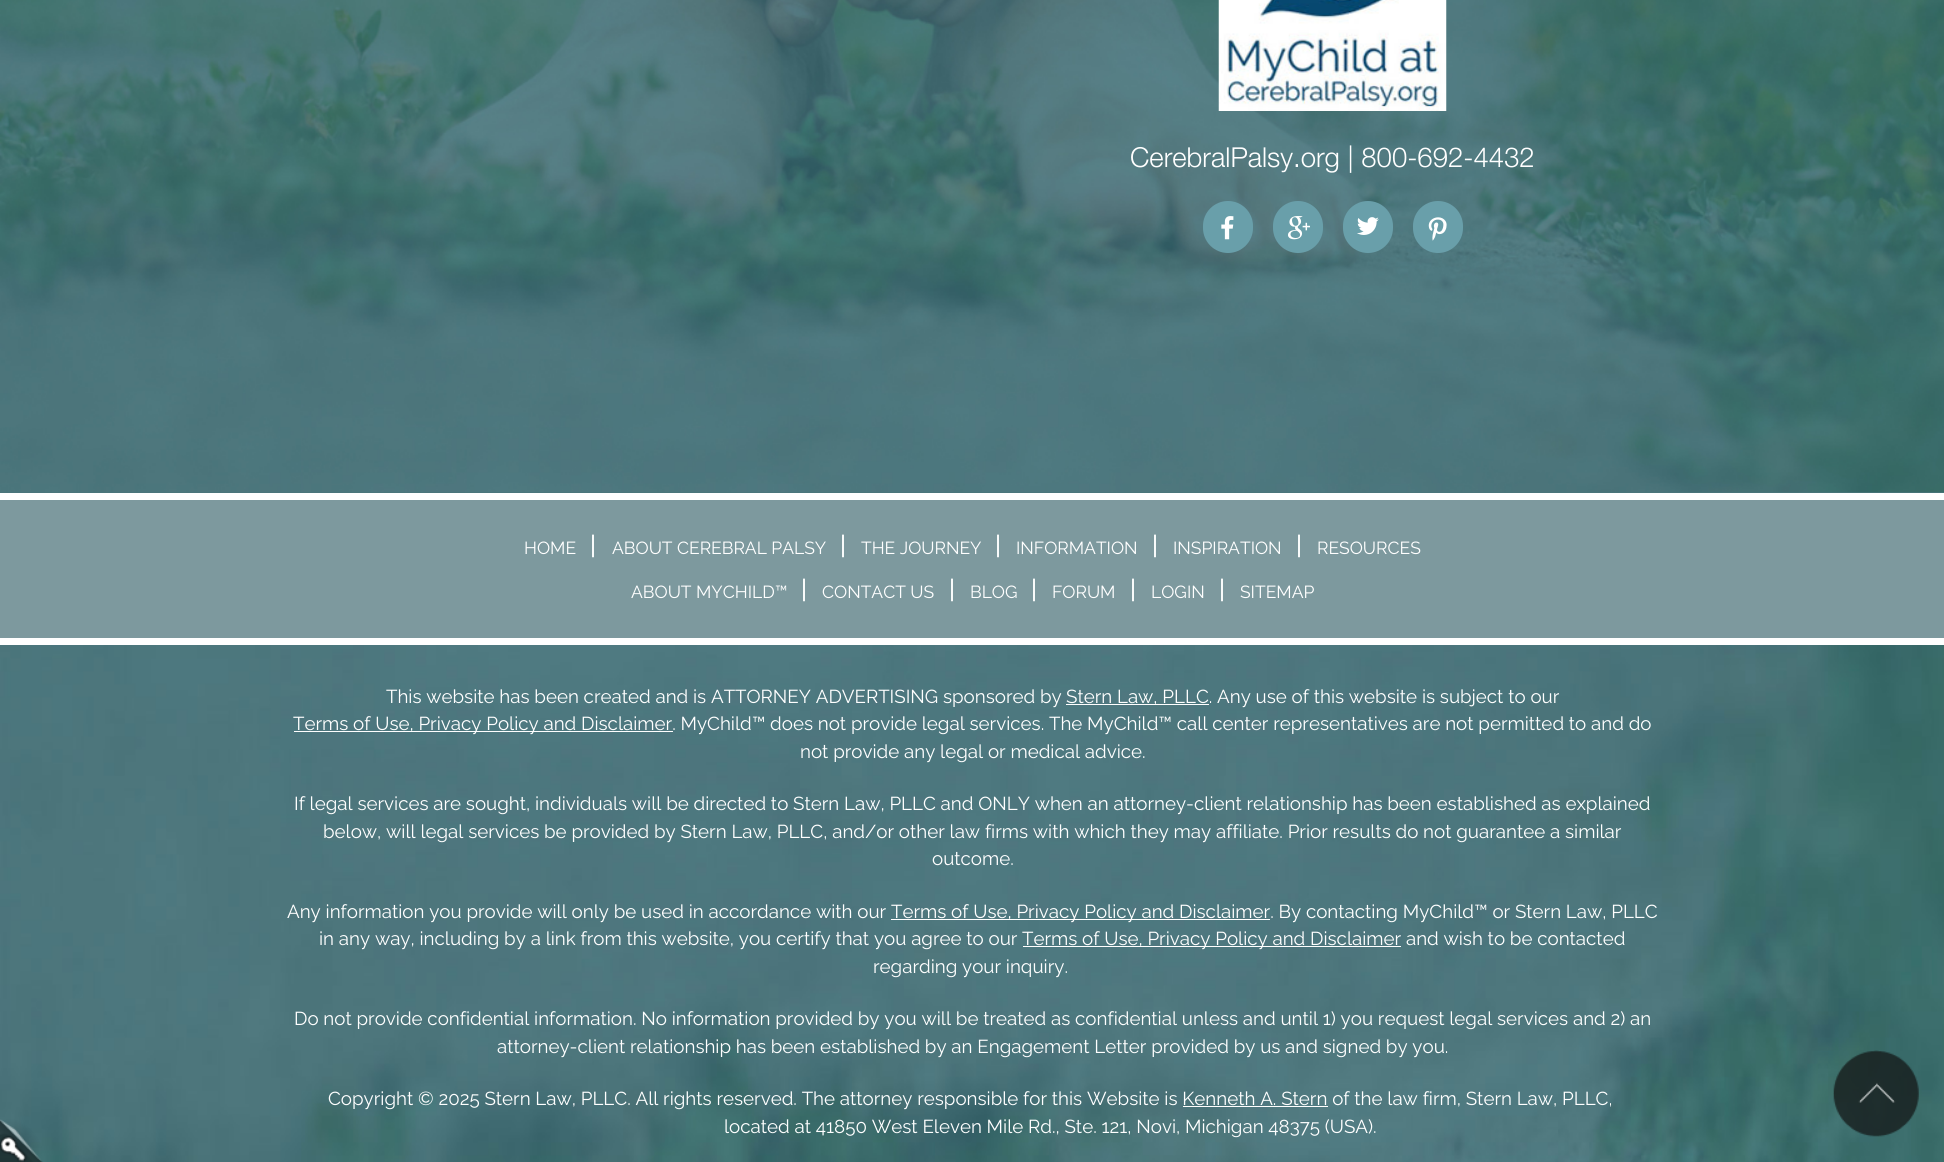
import math
import cairo

surface = cairo.ImageSurface(cairo.FORMAT_RGB24, 1944, 1162)
cr = cairo.Context(surface)
options = cairo.FontOptions()
options.set_hint_metrics(cairo.HINT_METRICS_OFF)
options.set_hint_style(cairo.HINT_STYLE_NONE)
cr.set_font_options(options)
cr.set_miter_limit(4)


def rgb(code):
    cr.set_source_rgb(*(v / 255 for v in bytes.fromhex(code[-6:])))


def rrect(x, y, w, h, r):
    cr.new_sub_path()
    for i, (u, v) in enumerate([(x + w - r, y + h - r), (x + r, y + h - r), (x + r, y + r), (x + w - r, y + r)]):
        cr.arc(u, v, r, i * math.pi / 2, (i + 1) * math.pi / 2)
    cr.close_path()


def image(path, x, y, w, h):
    cr.save()
    cr.set_source_surface(cairo.ImageSurface.create_from_png(path), x, y)
    cr.rectangle(x, y, w, h)
    cr.fill()
    cr.restore()


rgb("#4b757b")
cr.paint()
image("img/1.png", 0, 0, 1944, 493)
rgb("#ffffff")
cr.rectangle(0, 493, 1944, 7)
cr.fill()
image("img/2.png", 1218, 0, 229, 111)
rgb("#699faa")
rrect(1203, 201, 50, 52, 25)
cr.fill()
image("img/3.png", 1221, 216, 13, 24)
rrect(1273, 201, 50, 52, 25)
cr.fill()
image("img/4.png", 1288, 216, 22, 24)
rrect(1343, 201, 50, 52, 25)
cr.fill()
image("img/5.png", 1357, 217, 22, 18)
rrect(1413, 201, 50, 52, 25)
cr.fill()
image("img/6.png", 1428, 217, 19, 24)
rgb("#7d999e")
cr.rectangle(0, 500, 1944, 138)
cr.fill()
image("img/8.png", 0, 645, 1944, 517)
image("img/7.png", 0, 1119, 43, 43)
for x, y, w, h, color in [
    (0, 638, 1944, 7, "#ffffff"),
    (1066, 704, 143, 1, "#ffffff"),
    (294, 731, 379, 1, "#ffffff"),
    (891, 919, 379, 1, "#ffffff"),
    (1023, 946, 378, 1, "#ffffff"),
    (1183, 1106, 145, 1, "#ffffff"),
]:
    rgb(color)
    cr.rectangle(x, y, w, h)
    cr.fill()
image("img/9.png", 1833, 1050, 86, 87)
cr.select_font_face("Helvetica Neue Light")
cr.set_font_size(27.5)
cr.move_to(1130, 167)
cr.show_text("CerebralPalsy.org | 800-692-4432")
cr.select_font_face("Raleway")
cr.set_font_size(17.5)
cr.move_to(524, 554)
cr.show_text("HOME")
cr.select_font_face("Raleway Medium")
cr.set_font_size(25)
cr.move_to(590, 554)
cr.show_text("|")
cr.select_font_face("Raleway")
cr.set_font_size(17.5)
cr.move_to(612, 554)
cr.show_text("ABOUT CEREBRAL PALSY")
cr.select_font_face("Raleway Medium")
cr.set_font_size(25)
cr.move_to(840, 554)
cr.show_text("|")
cr.select_font_face("Raleway")
cr.set_font_size(17.5)
cr.move_to(861, 554)
cr.show_text("THE JOURNEY")
cr.select_font_face("Raleway Medium")
cr.set_font_size(25)
cr.move_to(995, 554)
cr.show_text("|")
cr.select_font_face("Raleway")
cr.set_font_size(17.5)
cr.move_to(1016, 554)
cr.show_text("INFORMATION")
cr.select_font_face("Raleway Medium")
cr.set_font_size(25)
cr.move_to(1152, 554)
cr.show_text("|")
cr.select_font_face("Raleway")
cr.set_font_size(17.5)
cr.move_to(1173, 554)
cr.show_text("INSPIRATION")
cr.select_font_face("Raleway Medium")
cr.set_font_size(25)
cr.move_to(1296, 554)
cr.show_text("|")
cr.select_font_face("Raleway")
cr.set_font_size(17.5)
cr.move_to(1317, 554)
cr.show_text("RESOURCES")
cr.move_to(631, 598)
cr.show_text("ABOUT MYCHILD™")
cr.select_font_face("Raleway Medium")
cr.set_font_size(25)
cr.move_to(801, 598)
cr.show_text("|")
cr.select_font_face("Raleway")
cr.set_font_size(17.5)
cr.move_to(822, 598)
cr.show_text("CONTACT US")
cr.select_font_face("Raleway Medium")
cr.set_font_size(25)
cr.move_to(949, 598)
cr.show_text("|")
cr.select_font_face("Raleway")
cr.set_font_size(17.5)
cr.move_to(970, 598)
cr.show_text("BLOG")
cr.select_font_face("Raleway Medium")
cr.set_font_size(25)
cr.move_to(1031, 598)
cr.show_text("|")
cr.select_font_face("Raleway")
cr.set_font_size(17.5)
cr.move_to(1052, 598)
cr.show_text("FORUM")
cr.select_font_face("Raleway Medium")
cr.set_font_size(25)
cr.move_to(1130, 598)
cr.show_text("|")
cr.select_font_face("Raleway")
cr.set_font_size(17.5)
cr.move_to(1151, 598)
cr.show_text("LOGIN")
cr.select_font_face("Raleway Medium")
cr.set_font_size(25)
cr.move_to(1219, 598)
cr.show_text("|")
cr.select_font_face("Raleway")
cr.set_font_size(17.5)
cr.move_to(1240, 598)
cr.show_text("SITEMAP")
cr.set_font_size(18.75)
for x, y, s in [
    (386, 703, "This website has been created and is ATTORNEY ADVERTISING sponsored by"),
    (1066, 703, "Stern Law, PLLC. Any use of this website is subject to our"),
    (293, 730, "Terms of Use, Privacy Policy and Disclaimer. MyChild™ does not provide legal services. The MyChild™ call center representatives are not permitted to and do"),
    (800, 758, "not provide any legal or medical advice."),
    (294, 810, "If legal services are sought, individuals will be directed to Stern Law, PLLC and ONLY when an attorney-client relationship has been established as explained"),
    (323, 838, "below, will legal services be provided by Stern Law, PLLC, and/or other law firms with which they may affiliate. Prior results do not guarantee a similar"),
    (932, 865, "outcome."),
    (287, 918, "Any information you provide will only be used in accordance with our"),
    (891, 918, "Terms of Use, Privacy Policy and Disclaimer. By contacting MyChild™ or Stern Law, PLLC"),
    (319, 945, "in any way, including by a link from this website, you certify that you agree to our"),
    (1022, 945, "Terms of Use, Privacy Policy and Disclaimer and wish to be contacted"),
    (873, 973, "regarding your inquiry."),
    (294, 1025, "Do not provide confidential information. No information provided by you will be treated as confidential unless and until 1) you request legal services and 2) an"),
    (497, 1053, "attorney-client relationship has been established by an Engagement Letter provided by us and signed by you."),
    (328, 1105, "Copyright © 2025 Stern Law, PLLC. All rights reserved. The attorney responsible for this Website is Kenneth A. Stern of the law firm, Stern Law, PLLC,"),
    (724, 1133, "located at 41850 West Eleven Mile Rd., Ste. 121, Novi, Michigan 48375 (USA)."),
]:
    cr.move_to(x, y)
    cr.show_text(s)
surface.write_to_png("page.png")
